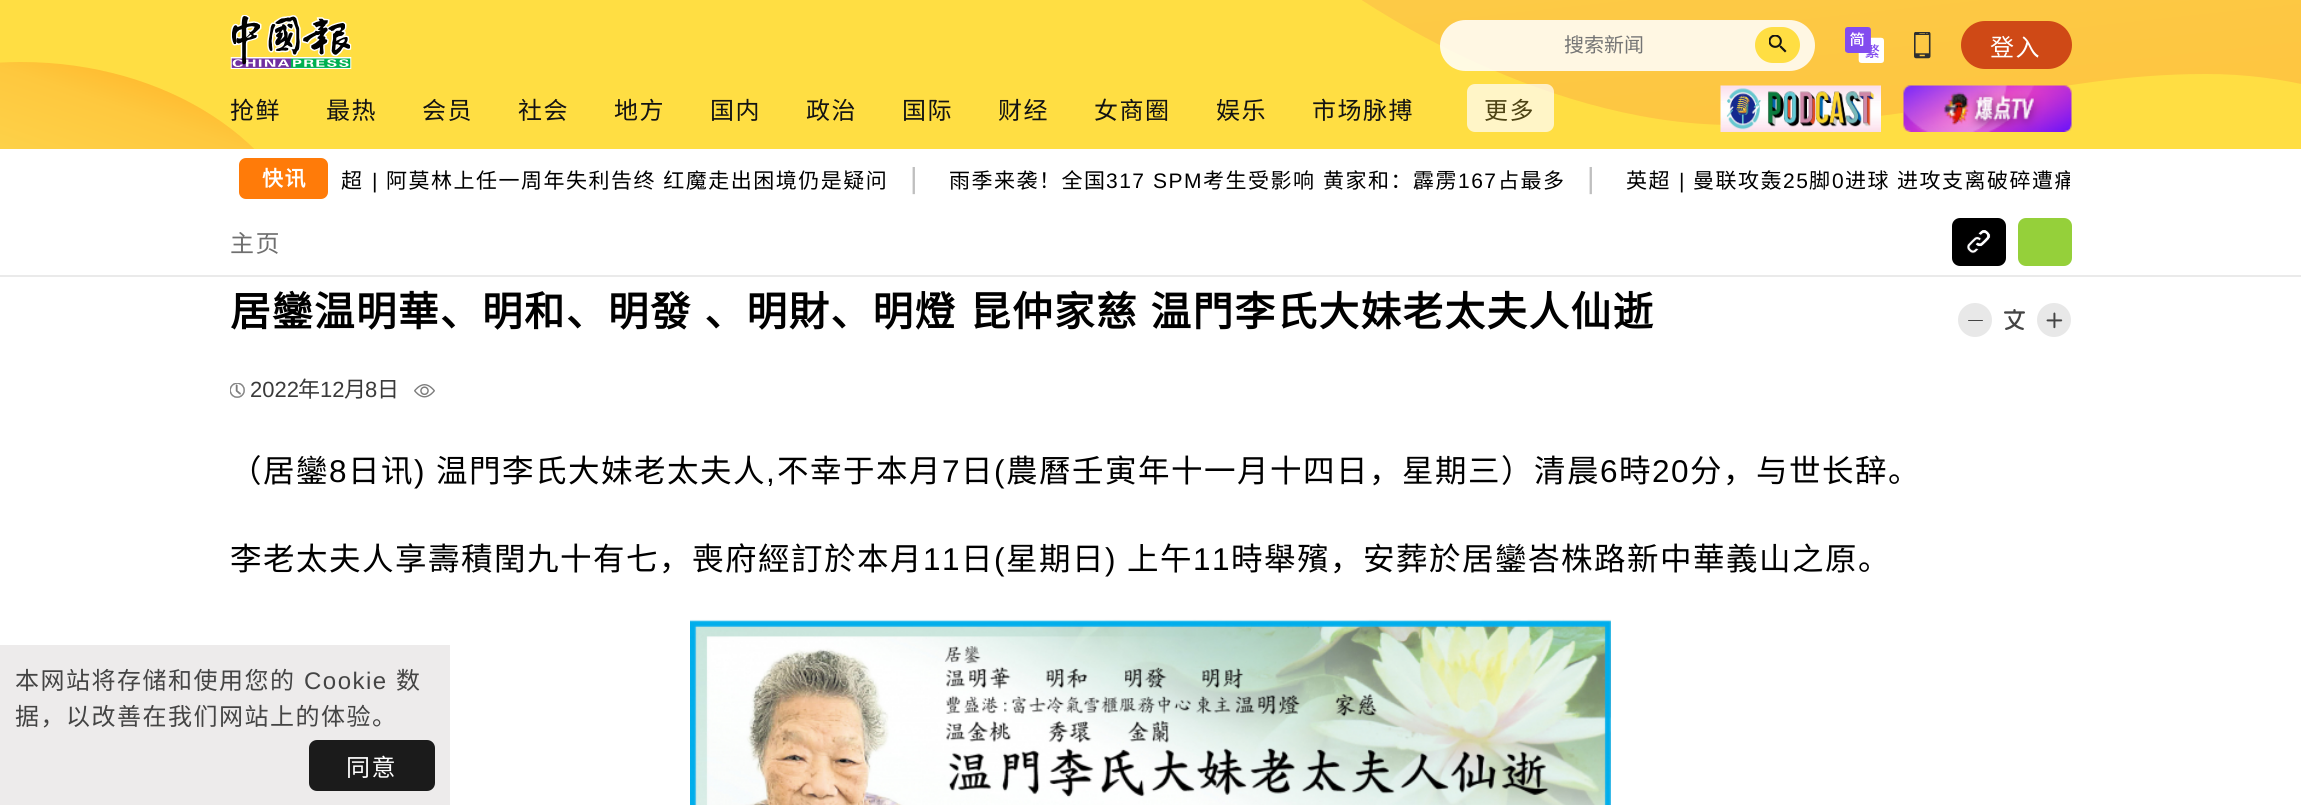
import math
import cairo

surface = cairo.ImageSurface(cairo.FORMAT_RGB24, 2301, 805)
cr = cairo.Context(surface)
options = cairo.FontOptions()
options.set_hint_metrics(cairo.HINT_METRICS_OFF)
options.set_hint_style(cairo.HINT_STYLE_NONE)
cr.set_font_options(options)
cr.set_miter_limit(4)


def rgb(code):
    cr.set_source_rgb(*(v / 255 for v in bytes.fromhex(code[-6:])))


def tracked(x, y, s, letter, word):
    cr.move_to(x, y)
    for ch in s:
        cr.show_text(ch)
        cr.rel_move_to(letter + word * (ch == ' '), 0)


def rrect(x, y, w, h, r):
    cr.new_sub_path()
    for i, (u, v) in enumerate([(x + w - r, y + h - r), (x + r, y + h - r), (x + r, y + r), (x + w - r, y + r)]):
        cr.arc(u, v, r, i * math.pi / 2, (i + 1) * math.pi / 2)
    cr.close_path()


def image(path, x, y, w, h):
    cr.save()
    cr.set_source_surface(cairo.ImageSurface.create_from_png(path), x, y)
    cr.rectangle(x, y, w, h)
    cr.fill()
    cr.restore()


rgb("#ffffff")
cr.paint()
rgb("#ffde43")
cr.rectangle(0, 0, 2301, 149)
cr.fill()
cr.save()
cr.rectangle(0, 62, 313, 87)
cr.clip()
gradient = cairo.LinearGradient(170, 91, 120, 240)
gradient.add_color_stop_rgba(0, 1, 0.741, 0.196, 1)
gradient.add_color_stop_rgba(0.2, 0.996, 0.784, 0.243, 1)
gradient.add_color_stop_rgba(1, 0.992, 0.843, 0.31, 1)
cr.set_source(gradient)
cr.new_path()
cr.move_to(21, 62)
cr.curve_to(-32, 62, -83, 73, -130, 94)
cr.line_to(-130, 250)
cr.line_to(313, 250)
cr.curve_to(289, 143, 167, 62, 21, 62)
cr.fill()
cr.restore()
gradient = cairo.LinearGradient(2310, 387, 2215, -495)
gradient.add_color_stop_rgba(0, 1, 0.706, 0.176, 1)
gradient.add_color_stop_rgba(0.2, 0.996, 0.761, 0.239, 1)
gradient.add_color_stop_rgba(1, 0.988, 0.835, 0.322, 1)
cr.set_source(gradient)
cr.new_path()
cr.move_to(1344, -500)
cr.line_to(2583, -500)
cr.line_to(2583, 156)
cr.curve_to(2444, 156, 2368, 74, 2206, 74)
cr.curve_to(2044, 74, 1937, 125, 1734, 125)
cr.curve_to(1531, 125, 1344, -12, 1344, -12)
cr.close_path()
cr.fill()
image("img/1.png", 230, 15, 122, 54)
cr.set_source_rgba(1, 1, 1, 0.85)
rrect(1440, 20, 375, 51, 25.5)
cr.fill()
rgb("#ffde43")
rrect(1755, 27, 45, 36, 18)
cr.fill()
image("img/2.png", 1769, 35, 18, 18)
image("img/3.png", 1845, 27, 39, 36)
image("img/4.png", 1914, 32, 17, 27)
rgb("#cf4916")
rrect(1961, 21, 111, 48, 24)
cr.fill()
cr.set_source_rgba(1, 1, 1, 0.7)
rrect(1467, 84, 87, 48, 8)
cr.fill()
image("img/5.png", 1720, 85, 161, 47)
image("img/6.png", 1903, 85, 169, 47)
rgb("#ff7b09")
rrect(235, 154, 97, 49, 11)
cr.fill_preserve()
rgb("#ffffff")
cr.set_line_width(8)
cr.stroke()
rgb("#eaeaea")
cr.rectangle(0, 275, 2301, 2)
cr.fill()
rgb("#000000")
rrect(1952, 218, 54, 48, 8)
cr.fill()
image("img/7.png", 1967, 230, 24, 24)
rgb("#95d03a")
rrect(2018, 218, 54, 48, 8)
cr.fill()
rgb("#e8e8e8")
cr.arc(1975, 320, 17, 0, 2 * math.pi)
cr.fill()
rgb("#444444")
rrect(1968, 320, 15, 1, 0.5)
cr.fill()
image("img/8.png", 2004, 309, 21, 21)
image("img/9.png", 2037, 303, 34, 34)
image("img/10.png", 230, 383, 15, 15)
image("img/11.png", 414, 384, 21, 14)
image("img/12.png", 690, 619, 921, 186)
rgb("#edebeb")
cr.rectangle(0, 645, 450, 160)
cr.fill()
rgb("#1b1b1b")
rrect(309, 740, 126, 51, 8)
cr.fill()
cr.select_font_face("Noto Sans CJK SC")
cr.set_font_size(20)
rgb("#757575")
cr.move_to(1564, 52)
cr.show_text("搜索新闻")
cr.set_font_size(24)
rgb("#ffffff")
tracked(1990, 56, "登入", 1.5, 0)
rgb("#131313")
for x, y, s in [
    (230, 119, "抢鲜"),
    (326, 119, "最热"),
    (422, 119, "会员"),
    (518, 119, "社会"),
    (614, 119, "地方"),
    (710, 119, "国内"),
    (806, 119, "政治"),
    (902, 119, "国际"),
    (998, 119, "财经"),
    (1094, 119, "女商圈"),
    (1216, 119, "娱乐"),
    (1312, 119, "市场脉搏"),
]:
    tracked(x, y, s, 1.5, 0)
rgb("#4d4314")
tracked(1484, 119, "更多", 1.5, 0)
cr.select_font_face("Noto Sans CJK SC", cairo.FONT_SLANT_NORMAL, cairo.FONT_WEIGHT_BOLD)
cr.set_font_size(21)
rgb("#ffffff")
tracked(262, 186, "快讯", 1.5, 0)
cr.select_font_face("Noto Sans CJK SC")
rgb("#000000")
tracked(341, 188, "超", 1.5, 0)
cr.select_font_face("Liberation Sans")
tracked(372, 188, "|", 1.5, 0)
cr.select_font_face("Noto Sans CJK SC")
tracked(386, 188, "阿莫林上任一周年失利告终 红魔走出困境仍是疑问", 1.5, 1)
cr.select_font_face("Liberation Sans")
cr.set_font_size(29)
rgb("#bfbfbf")
tracked(910, 188, "|", 1.5, 0)
cr.select_font_face("Noto Sans CJK SC")
cr.set_font_size(21)
rgb("#000000")
tracked(949, 188, "雨季来袭！全国", 1.5, 0)
cr.select_font_face("Liberation Sans")
tracked(1106, 188, "317 SPM", 1.5, 0)
cr.select_font_face("Noto Sans CJK SC")
tracked(1203, 188, "考生受影响", 1.5, 0)
tracked(1323, 188, "黄家和：霹雳", 1.5, 0)
cr.select_font_face("Liberation Sans")
tracked(1458, 188, "167", 1.5, 0)
cr.select_font_face("Noto Sans CJK SC")
tracked(1498, 188, "占最多", 1.5, 0)
cr.select_font_face("Liberation Sans")
cr.set_font_size(29)
rgb("#bfbfbf")
tracked(1587, 188, "|", 1.5, 0)
cr.select_font_face("Noto Sans CJK SC")
cr.set_font_size(21)
rgb("#000000")
tracked(1626, 188, "英超", 1.5, 0)
cr.select_font_face("Liberation Sans")
tracked(1679, 188, "|", 1.5, 0)
cr.select_font_face("Noto Sans CJK SC")
tracked(1693, 188, "曼联攻轰", 1.5, 0)
cr.select_font_face("Liberation Sans")
tracked(1783, 188, "25", 1.5, 0)
cr.select_font_face("Noto Sans CJK SC")
tracked(1809, 188, "脚", 1.5, 0)
cr.select_font_face("Liberation Sans")
tracked(1832, 188, "0", 1.5, 0)
cr.select_font_face("Noto Sans CJK SC")
tracked(1845, 188, "进球", 1.5, 0)
cr.save()
cr.rectangle(1611, 150, 459, 57)
cr.clip()
tracked(1897, 188, "进攻支离破碎遭痛", 1.5, 0)
cr.restore()
cr.set_font_size(24)
rgb("#6f6f6f")
tracked(230, 252, "主页", 1.5, 0)
cr.select_font_face("Noto Sans CJK SC", cairo.FONT_SLANT_NORMAL, cairo.FONT_WEIGHT_BOLD)
cr.set_font_size(40.5)
rgb("#000000")
tracked(230, 326, "居鑾温明華、明和、明發 、明財、明燈", 1.5, 2)
tracked(970, 326, "昆仲家慈 温門李氏大妹老太夫人仙逝", 1.5, 2)
cr.select_font_face("Liberation Sans")
cr.set_font_size(22)
rgb("#3a3a3a")
cr.move_to(250, 397)
cr.show_text("2022")
cr.select_font_face("Noto Sans CJK SC")
cr.move_to(298, 397)
cr.show_text("年")
cr.select_font_face("Liberation Sans")
cr.move_to(320, 397)
cr.show_text("12")
cr.select_font_face("Noto Sans CJK SC")
cr.move_to(344, 397)
cr.show_text("月")
cr.select_font_face("Liberation Sans")
cr.move_to(365, 397)
cr.show_text("8")
cr.select_font_face("Noto Sans CJK SC")
cr.move_to(377, 397)
cr.show_text("日")
cr.set_font_size(31.5)
rgb("#000000")
tracked(230, 482, "（居鑾", 1.5, 0)
cr.select_font_face("Liberation Sans")
tracked(329, 482, "8", 1.5, 0)
cr.select_font_face("Noto Sans CJK SC")
tracked(348, 482, "日讯", 1.5, 0)
cr.select_font_face("Liberation Sans")
tracked(414, 482, ")", 1.5, 0)
cr.select_font_face("Noto Sans CJK SC")
tracked(436, 482, "温門李氏大妹老太夫人", 1.5, 0)
cr.select_font_face("Liberation Sans")
tracked(766, 482, ",", 1.5, 0)
cr.select_font_face("Noto Sans CJK SC")
tracked(777, 482, "不幸于本月", 1.5, 0)
cr.select_font_face("Liberation Sans")
tracked(942, 482, "7", 1.5, 0)
cr.select_font_face("Noto Sans CJK SC")
tracked(961, 482, "日", 1.5, 0)
cr.select_font_face("Liberation Sans")
tracked(994, 482, "(", 1.5, 0)
cr.select_font_face("Noto Sans CJK SC")
tracked(1006, 482, "農曆壬寅年十一月十四日，星期三）清晨", 1.5, 0)
cr.select_font_face("Liberation Sans")
tracked(1600, 482, "6", 1.5, 0)
cr.select_font_face("Noto Sans CJK SC")
tracked(1619, 482, "時", 1.5, 0)
cr.select_font_face("Liberation Sans")
tracked(1652, 482, "20", 1.5, 0)
cr.select_font_face("Noto Sans CJK SC")
tracked(1690, 482, "分，与世长辞。", 1.5, 0)
tracked(230, 570, "李老太夫人享壽積閏九十有七，喪府經訂於本月", 1.5, 0)
cr.select_font_face("Liberation Sans")
tracked(923, 570, "11", 1.5, 0)
cr.select_font_face("Noto Sans CJK SC")
tracked(961, 570, "日", 1.5, 0)
cr.select_font_face("Liberation Sans")
tracked(994, 570, "(", 1.5, 0)
cr.select_font_face("Noto Sans CJK SC")
tracked(1006, 570, "星期日", 1.5, 0)
cr.select_font_face("Liberation Sans")
tracked(1105, 570, ")", 1.5, 0)
cr.select_font_face("Noto Sans CJK SC")
tracked(1127, 570, "上午", 1.5, 0)
cr.select_font_face("Liberation Sans")
tracked(1193, 570, "11", 1.5, 0)
cr.select_font_face("Noto Sans CJK SC")
tracked(1231, 570, "時舉殯，安葬於居鑾峇株路新中華義山之原。", 1.5, 0)
cr.set_font_size(24)
rgb("#444444")
tracked(15, 689, "本网站将存储和使用您的", 1.5, 0)
cr.select_font_face("Liberation Sans")
tracked(304, 689, "Cookie", 1.5, 0)
cr.select_font_face("Noto Sans CJK SC")
tracked(396, 689, "数", 1.5, 0)
tracked(15, 725, "据，以改善在我们网站上的体验。", 1.5, 0)
rgb("#ffffff")
tracked(346, 776, "同意", 1.5, 0)
surface.write_to_png("page.png")
